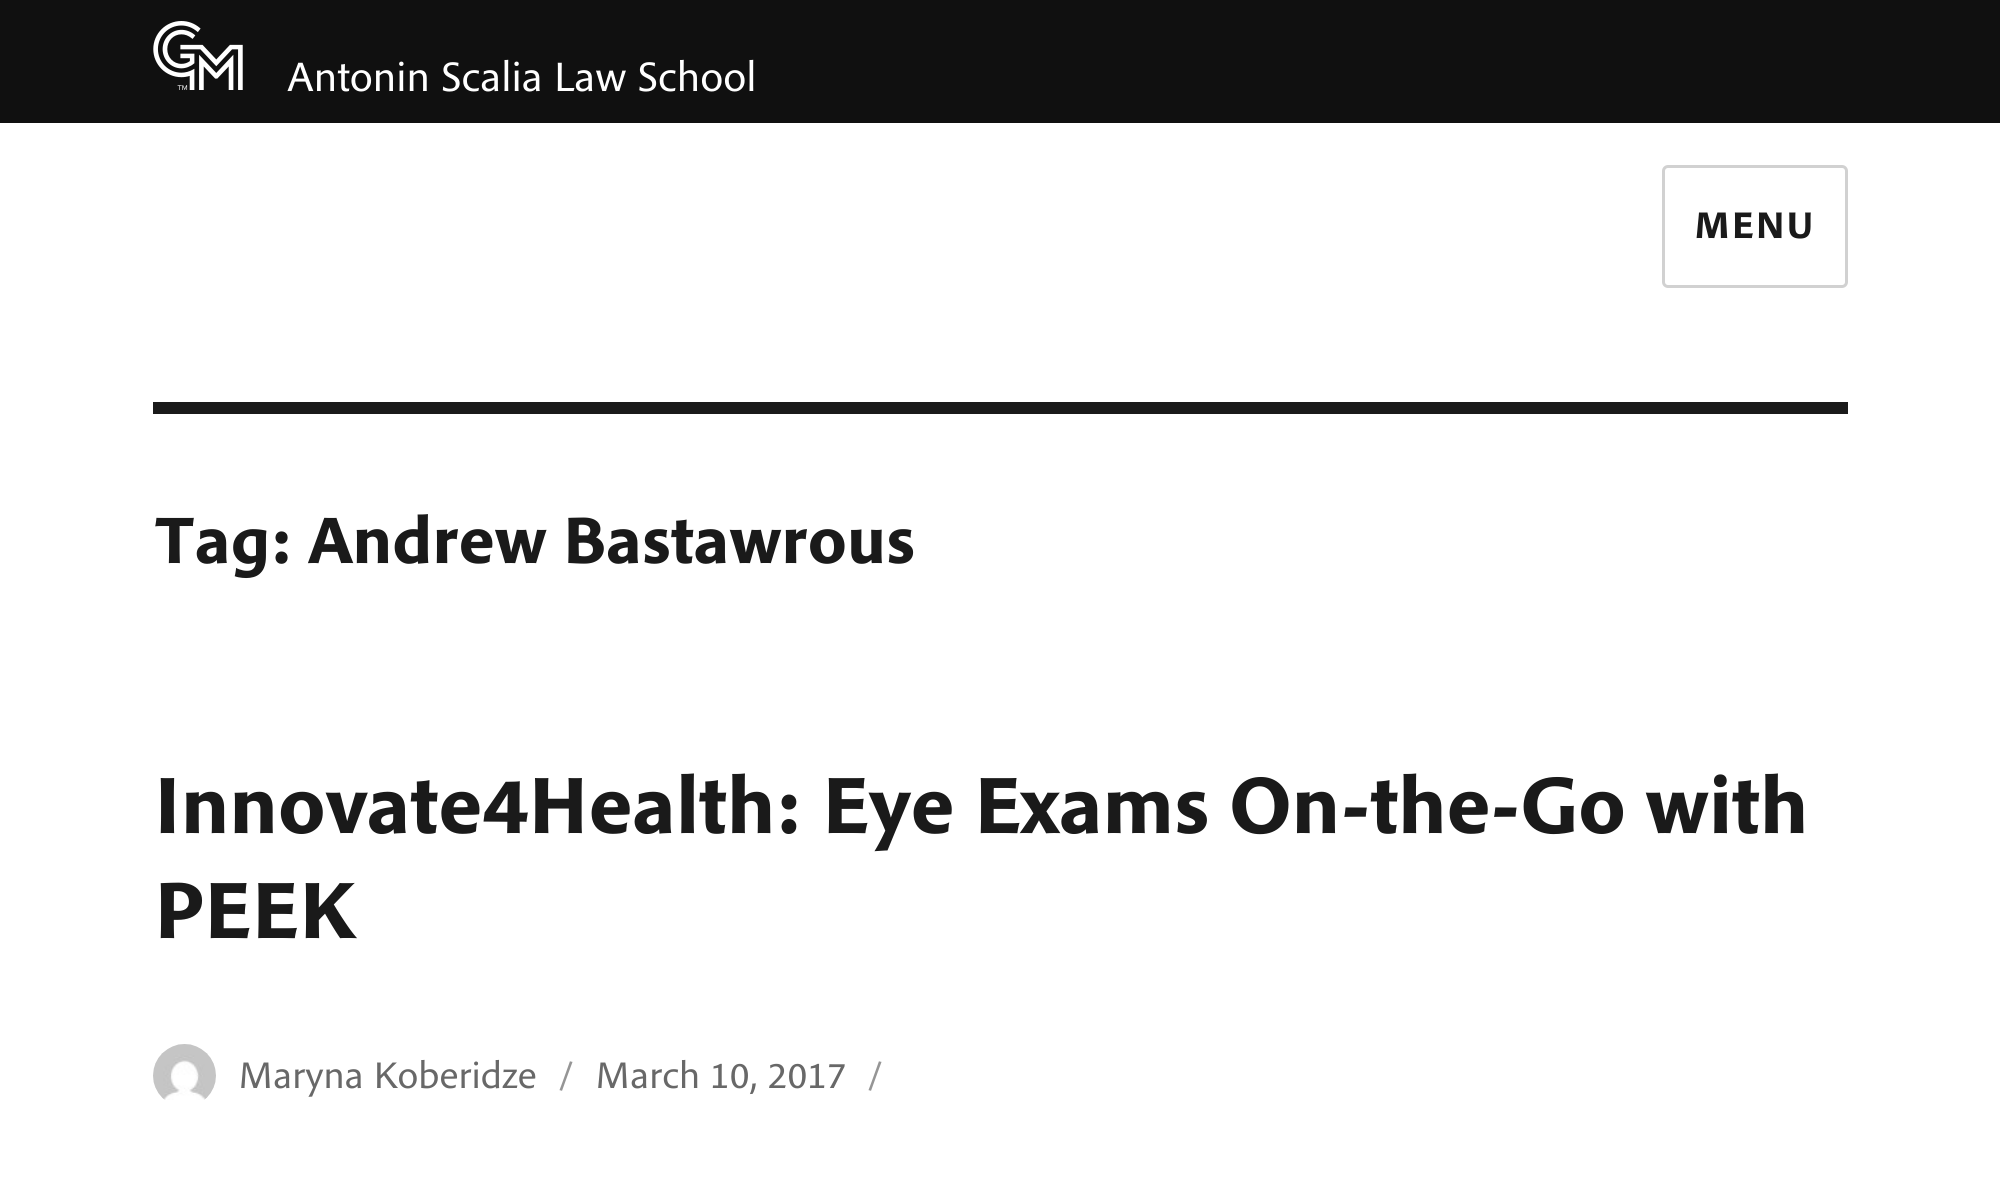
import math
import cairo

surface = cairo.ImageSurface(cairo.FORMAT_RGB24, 2000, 1196)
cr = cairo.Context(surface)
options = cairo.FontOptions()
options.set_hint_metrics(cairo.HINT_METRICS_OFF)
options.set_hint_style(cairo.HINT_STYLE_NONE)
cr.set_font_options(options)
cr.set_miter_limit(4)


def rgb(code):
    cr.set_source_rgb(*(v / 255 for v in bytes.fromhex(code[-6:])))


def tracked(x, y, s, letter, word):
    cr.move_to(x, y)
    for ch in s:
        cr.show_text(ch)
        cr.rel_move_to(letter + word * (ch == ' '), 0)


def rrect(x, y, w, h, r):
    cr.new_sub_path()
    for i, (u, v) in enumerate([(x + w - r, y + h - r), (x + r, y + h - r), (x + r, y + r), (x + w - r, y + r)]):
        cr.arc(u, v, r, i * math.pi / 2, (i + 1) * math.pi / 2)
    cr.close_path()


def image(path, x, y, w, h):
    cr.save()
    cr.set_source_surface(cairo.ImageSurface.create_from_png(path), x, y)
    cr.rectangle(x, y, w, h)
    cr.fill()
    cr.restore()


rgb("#101010")
cr.paint()
image("img/1.png", 153, 21, 90, 69)
rgb("#ffffff")
cr.rectangle(0, 123, 2000, 1073)
cr.fill()
rrect(1663.5, 166.5, 183, 120, 4.5)
rgb("#d1d1d1")
cr.set_line_width(3)
cr.stroke()
rgb("#1a1a1a")
cr.rectangle(153, 402, 1695, 12)
cr.fill()
image("img/2.png", 153, 1044, 63, 56)
cr.select_font_face("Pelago")
cr.set_font_size(43.25)
rgb("#ffffff")
cr.move_to(287, 91)
cr.show_text("Antonin Scalia Law School")
cr.select_font_face("Pelago", cairo.FONT_SLANT_NORMAL, cairo.FONT_WEIGHT_BOLD)
cr.set_font_size(39)
rgb("#1a1a1a")
tracked(1694, 238, "MENU", 2, 0)
cr.set_font_size(69)
cr.move_to(154, 563)
cr.show_text("Tag: Andrew Bastawrous")
cr.set_font_size(84)
cr.move_to(154, 833)
cr.show_text("Innovate4Health: Eye Exams On-the-Go with")
cr.move_to(154, 938)
cr.show_text("PEEK")
cr.select_font_face("Pelago")
cr.set_font_size(39)
rgb("#686868")
cr.move_to(238, 1088)
cr.show_text("Maryna Koberidze")
rgb("#959595")
cr.move_to(558, 1088)
cr.show_text("/")
rgb("#686868")
cr.move_to(595, 1088)
cr.show_text("March 10, 2017")
rgb("#959595")
cr.move_to(867, 1088)
cr.show_text("/")
surface.write_to_png("page.png")
